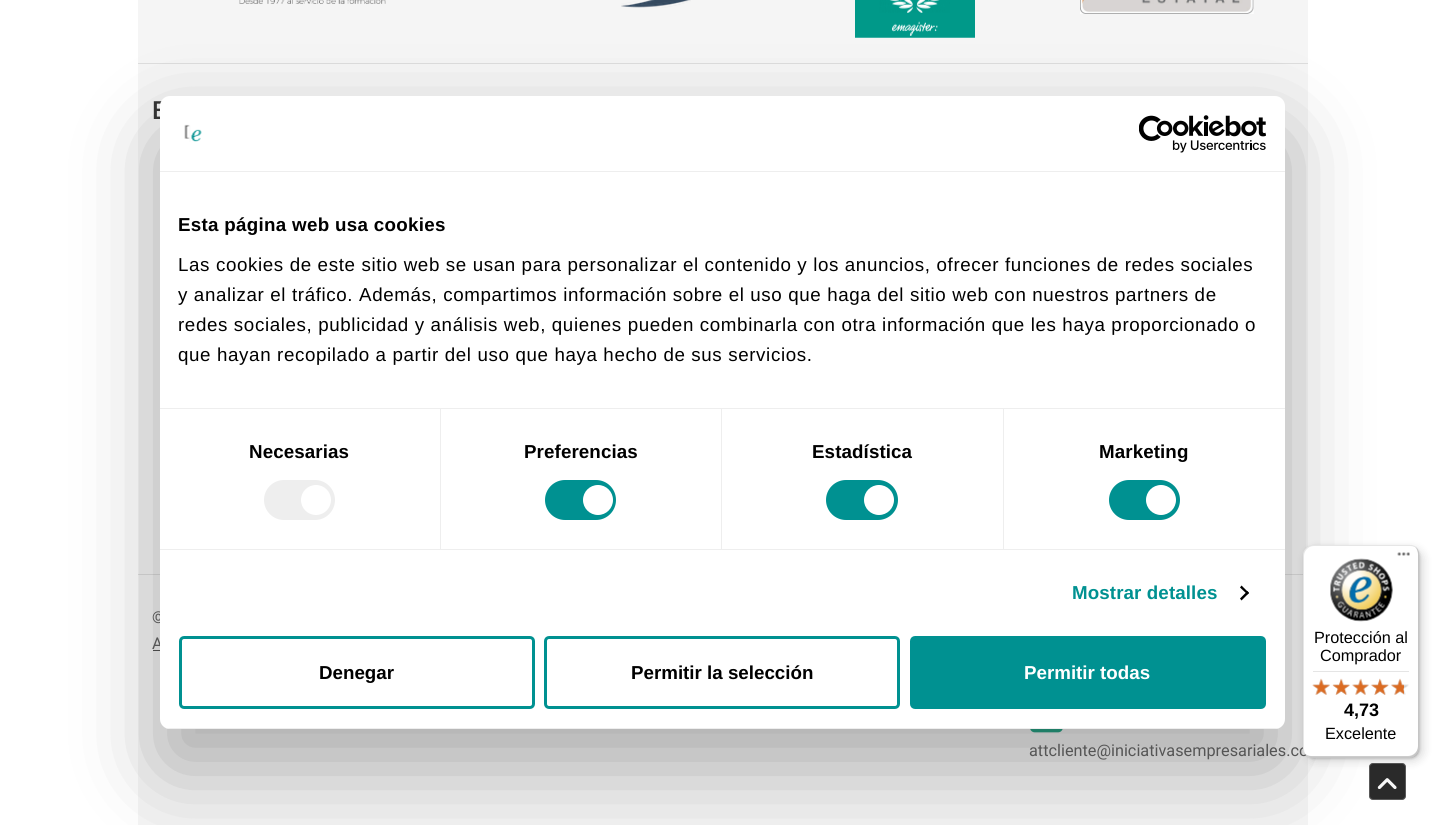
import math
import cairo

surface = cairo.ImageSurface(cairo.FORMAT_RGB24, 1443, 825)
cr = cairo.Context(surface)
options = cairo.FontOptions()
options.set_hint_metrics(cairo.HINT_METRICS_OFF)
options.set_hint_style(cairo.HINT_STYLE_NONE)
cr.set_font_options(options)
cr.set_miter_limit(4)


def rgb(code):
    cr.set_source_rgb(*(v / 255 for v in bytes.fromhex(code[-6:])))


def tracked(x, y, s, letter, word):
    cr.move_to(x, y)
    for ch in s:
        cr.show_text(ch)
        cr.rel_move_to(letter + word * (ch == ' '), 0)


def rrect(x, y, w, h, r):
    cr.new_sub_path()
    for i, (u, v) in enumerate([(x + w - r, y + h - r), (x + r, y + h - r), (x + r, y + r), (x + w - r, y + r)]):
        cr.arc(u, v, r, i * math.pi / 2, (i + 1) * math.pi / 2)
    cr.close_path()


def soft_shadow(x, y, w, h, r, blur, alpha):
    cr.push_group_with_content(cairo.CONTENT_ALPHA)
    cr.set_operator(cairo.OPERATOR_SOURCE)
    for i in range(15, -16, -2):
        e = blur * i / 6
        if min(w, h) + 2 * e > 0:
            cr.set_source_rgba(0, 0, 0, alpha * math.erfc((i - 1) / 8.5) / 2)
            rrect(x - e, y - e, w + 2 * e, h + 2 * e, max(0, min(r + e + blur * .6, min(w, h) / 2 + e)))
            cr.fill()
    cr.mask(cr.pop_group())


def image(path, x, y, w, h):
    cr.save()
    cr.set_source_surface(cairo.ImageSurface.create_from_png(path), x, y)
    cr.rectangle(x, y, w, h)
    cr.fill()
    cr.restore()


rgb("#ffffff")
cr.paint()
rgb("#f5f5f5")
cr.rectangle(138, 0, 1170, 825)
cr.fill()
image("img/1.png", 239, 0, 147, 4)
image("img/2.png", 621, 0, 70, 8)
image("img/3.png", 855, 0, 120, 38)
image("img/4.png", 1080, 0, 174, 14)
for x, y, w, h, color in [
    (138, 63, 1170, 1, "#dddddd"),
    (138, 574, 1170, 1, "#dddddd"),
    (153, 650, 7, 1, "#555555"),
]:
    rgb(color)
    cr.rectangle(x, y, w, h)
    cr.fill()
image("img/5.png", 1030, 729, 33, 4)
rgb("#2a2a2a")
rrect(1369, 763, 37, 37, 4)
cr.fill()
rrect(1369.5, 763.5, 36, 36, 3.5)
cr.set_source_rgba(0.788, 0.788, 0.788, 0.3)
cr.set_line_width(1)
cr.stroke()
image("img/20.png", 1377, 778, 20, 11)
rgb("#000000")
soft_shadow(160, 136, 1125, 633, 10, 42.5, 0.3)
soft_shadow(1306, 549, 117, 212, 10, 5, 0.15)
soft_shadow(1304, 546, 116, 213, 10, 1, 0.15)
cr.select_font_face("Roboto Medium")
cr.set_font_size(25)
rgb("#333333")
cr.move_to(152, 119)
cr.show_text("E")
cr.select_font_face("Roboto")
cr.set_font_size(16.25)
rgb("#555555")
for x, y, s in [
    (152, 623, "©"),
    (152, 649, "A"),
    (1029, 756, "attcliente@iniciativasempresariales.co"),
]:
    cr.move_to(x, y)
    cr.show_text(s)
rgb("#ffffff")
rrect(160, 96, 1125, 633, 10)
cr.fill()
rgb("#eeeeee")
cr.rectangle(160, 171, 1125, 1)
cr.fill()
image("img/6.png", 184, 124, 18, 18)
image("img/7.png", 1139, 115, 127, 38)
cr.rectangle(160, 408, 1125, 1)
cr.fill()
cr.select_font_face("Liberation Sans", cairo.FONT_SLANT_NORMAL, cairo.FONT_WEIGHT_BOLD)
cr.set_font_size(18.75)
rgb("#000000")
tracked(178, 231, "Esta página web usa cookies", 0.3, 0)
cr.select_font_face("Liberation Sans")
for x, y, s in [
    (178, 271, "Las cookies de este sitio web se usan para personalizar el contenido y los anuncios, ofrecer funciones de redes sociales"),
    (178, 301, "y analizar el tráfico. Además, compartimos información sobre el uso que haga del sitio web con nuestros partners de"),
    (178, 331, "redes sociales, publicidad y análisis web, quienes pueden combinarla con otra información que les haya proporcionado o"),
    (178, 361, "que hayan recopilado a partir del uso que haya hecho de sus servicios."),
]:
    tracked(x, y, s, 0.62, 0)
rgb("#eeeeee")
cr.rectangle(160, 549, 1125, 1)
cr.fill()
cr.rectangle(440, 409, 1, 140)
cr.fill()
cr.select_font_face("Liberation Sans", cairo.FONT_SLANT_NORMAL, cairo.FONT_WEIGHT_BOLD)
rgb("#000000")
tracked(249, 458, "Necesarias", 0.1, 0)
rgb("#eeeeee")
rrect(264, 480, 71, 40, 20)
cr.fill()
rgb("#ffffff")
cr.arc(316, 500, 15, 0, 2 * math.pi)
cr.fill()
rgb("#eeeeee")
cr.rectangle(721, 409, 1, 140)
cr.fill()
rgb("#000000")
tracked(524, 458, "Preferencias", 0.1, 0)
rgb("#009191")
rrect(545, 480, 71, 40, 20)
cr.fill()
rgb("#ffffff")
cr.arc(598, 500, 15, 0, 2 * math.pi)
cr.fill()
rgb("#eeeeee")
cr.rectangle(1003, 409, 1, 140)
cr.fill()
rgb("#000000")
tracked(812, 458, "Estadística", 0.1, 0)
rgb("#009191")
rrect(826, 480, 72, 40, 20)
cr.fill()
rgb("#ffffff")
cr.arc(879, 500, 15, 0, 2 * math.pi)
cr.fill()
rgb("#000000")
tracked(1099, 458, "Marketing", 0.1, 0)
rgb("#009191")
rrect(1109, 480, 71, 40, 20)
cr.fill()
rgb("#ffffff")
cr.arc(1161, 500, 15, 0, 2 * math.pi)
cr.fill()
rgb("#009191")
tracked(1072, 599, "Mostrar detalles", 0.1, 0)
rgb("#000000")
cr.new_path()
cr.move_to(1241.5, 585.5)
cr.line_to(1249, 593)
cr.line_to(1247.5, 594.5)
cr.line_to(1240, 587.5)
cr.close_path()
cr.fill()
cr.new_path()
cr.move_to(1247.5, 591)
cr.line_to(1249, 593)
cr.line_to(1241.5, 600.5)
cr.line_to(1240, 598.5)
cr.close_path()
cr.fill()
cr.save()
rrect(160, 96, 1125, 633, 10)
cr.clip()
rgb("#eeeeee")
cr.rectangle(160, 728, 1125, 1)
cr.fill()
cr.restore()
rrect(180.5, 637.5, 353, 70, 3.5)
rgb("#009191")
cr.set_line_width(3)
cr.stroke()
rgb("#000000")
cr.move_to(319, 679)
cr.show_text("Denegar")
rrect(545.5, 637.5, 353, 70, 3.5)
rgb("#009191")
cr.stroke()
rgb("#000000")
cr.move_to(631, 679)
cr.show_text("Permitir la selección")
rgb("#009191")
rrect(911.5, 637.5, 353, 70, 3.5)
cr.fill_preserve()
cr.stroke()
rgb("#ffffff")
cr.move_to(1024, 679)
cr.show_text("Permitir todas")
rrect(1303, 545, 116, 213, 10)
cr.fill()
cr.set_source_rgba(0, 0, 0, 0.1)
cr.new_path()
cr.move_to(1314, 546)
cr.line_to(1410, 546)
cr.curve_to(1413, 546, 1415, 547, 1417, 548)
cr.curve_to(1415, 546, 1412, 545, 1409, 545)
cr.line_to(1313, 545)
cr.curve_to(1307, 545, 1303, 549, 1303, 555)
cr.line_to(1303, 748)
cr.curve_to(1303, 751, 1304, 754, 1307, 756)
cr.curve_to(1305, 754, 1304, 751, 1304, 749)
cr.line_to(1304, 556)
cr.curve_to(1304, 551, 1308, 546, 1314, 546)
cr.close_path()
cr.fill()
cr.set_source_rgba(0, 0, 0, 0.2)
cr.new_path()
cr.move_to(1305, 754)
cr.curve_to(1307, 756, 1310, 758, 1313, 758)
cr.line_to(1409, 758)
cr.curve_to(1415, 758, 1419, 754, 1419, 748)
cr.line_to(1419, 555)
cr.curve_to(1419, 552, 1418, 549, 1416, 547)
cr.curve_to(1417, 549, 1418, 551, 1418, 554)
cr.line_to(1418, 746)
cr.curve_to(1418, 752, 1413, 756, 1408, 756)
cr.line_to(1311, 756)
cr.curve_to(1309, 756, 1307, 755, 1305, 754)
cr.close_path()
cr.fill()
cr.set_source_rgba(0.196, 0.196, 0.196, 0.2)
cr.new_path()
cr.move_to(1305, 755)
cr.curve_to(1307, 757, 1310, 758, 1313, 758)
cr.line_to(1409, 758)
cr.curve_to(1415, 758, 1419, 754, 1419, 748)
cr.line_to(1419, 555)
cr.curve_to(1419, 552, 1418, 549, 1415, 547)
cr.curve_to(1417, 549, 1418, 552, 1418, 554)
cr.line_to(1418, 747)
cr.curve_to(1418, 752, 1414, 757, 1408, 757)
cr.line_to(1312, 757)
cr.curve_to(1309, 757, 1307, 756, 1305, 755)
cr.close_path()
cr.fill()
cr.set_source_rgba(1, 1, 1, 0.3)
cr.new_path()
cr.move_to(1305, 755)
cr.curve_to(1307, 757, 1310, 758, 1313, 758)
cr.line_to(1409, 758)
cr.curve_to(1415, 758, 1419, 754, 1419, 748)
cr.line_to(1419, 555)
cr.curve_to(1419, 552, 1418, 549, 1415, 547)
cr.curve_to(1417, 549, 1418, 552, 1418, 554)
cr.line_to(1418, 747)
cr.curve_to(1418, 752, 1414, 757, 1408, 757)
cr.line_to(1312, 757)
cr.curve_to(1309, 757, 1307, 756, 1305, 755)
cr.close_path()
cr.fill()
image("img/8.png", 1397, 552, 13, 4)
image("img/9.png", 1330, 558, 63, 64)
cr.select_font_face("Liberation Sans")
cr.set_font_size(16.25)
rgb("#000000")
cr.move_to(1314, 643)
cr.show_text("Protección al")
cr.move_to(1320, 661)
cr.show_text("Comprador")
rgb("#e5e5e5")
cr.rectangle(1313, 671, 96, 1)
cr.fill()
image("img/15.png", 1313, 679, 17, 16)
image("img/10.png", 1312, 678, 18, 17)
image("img/16.png", 1333, 679, 17, 16)
image("img/11.png", 1332, 678, 18, 17)
image("img/17.png", 1352, 679, 17, 16)
image("img/12.png", 1352, 678, 17, 17)
image("img/18.png", 1371, 679, 18, 16)
image("img/13.png", 1371, 678, 18, 17)
image("img/19.png", 1391, 679, 18, 16)
image("img/14.png", 1391, 678, 13, 17)
cr.select_font_face("Liberation Sans", cairo.FONT_SLANT_NORMAL, cairo.FONT_WEIGHT_BOLD)
cr.set_font_size(18)
rgb("#000000")
cr.move_to(1344, 716)
cr.show_text("4,73")
cr.select_font_face("Liberation Sans")
cr.set_font_size(16.25)
cr.move_to(1325, 739)
cr.show_text("Excelente")
surface.write_to_png("page.png")
